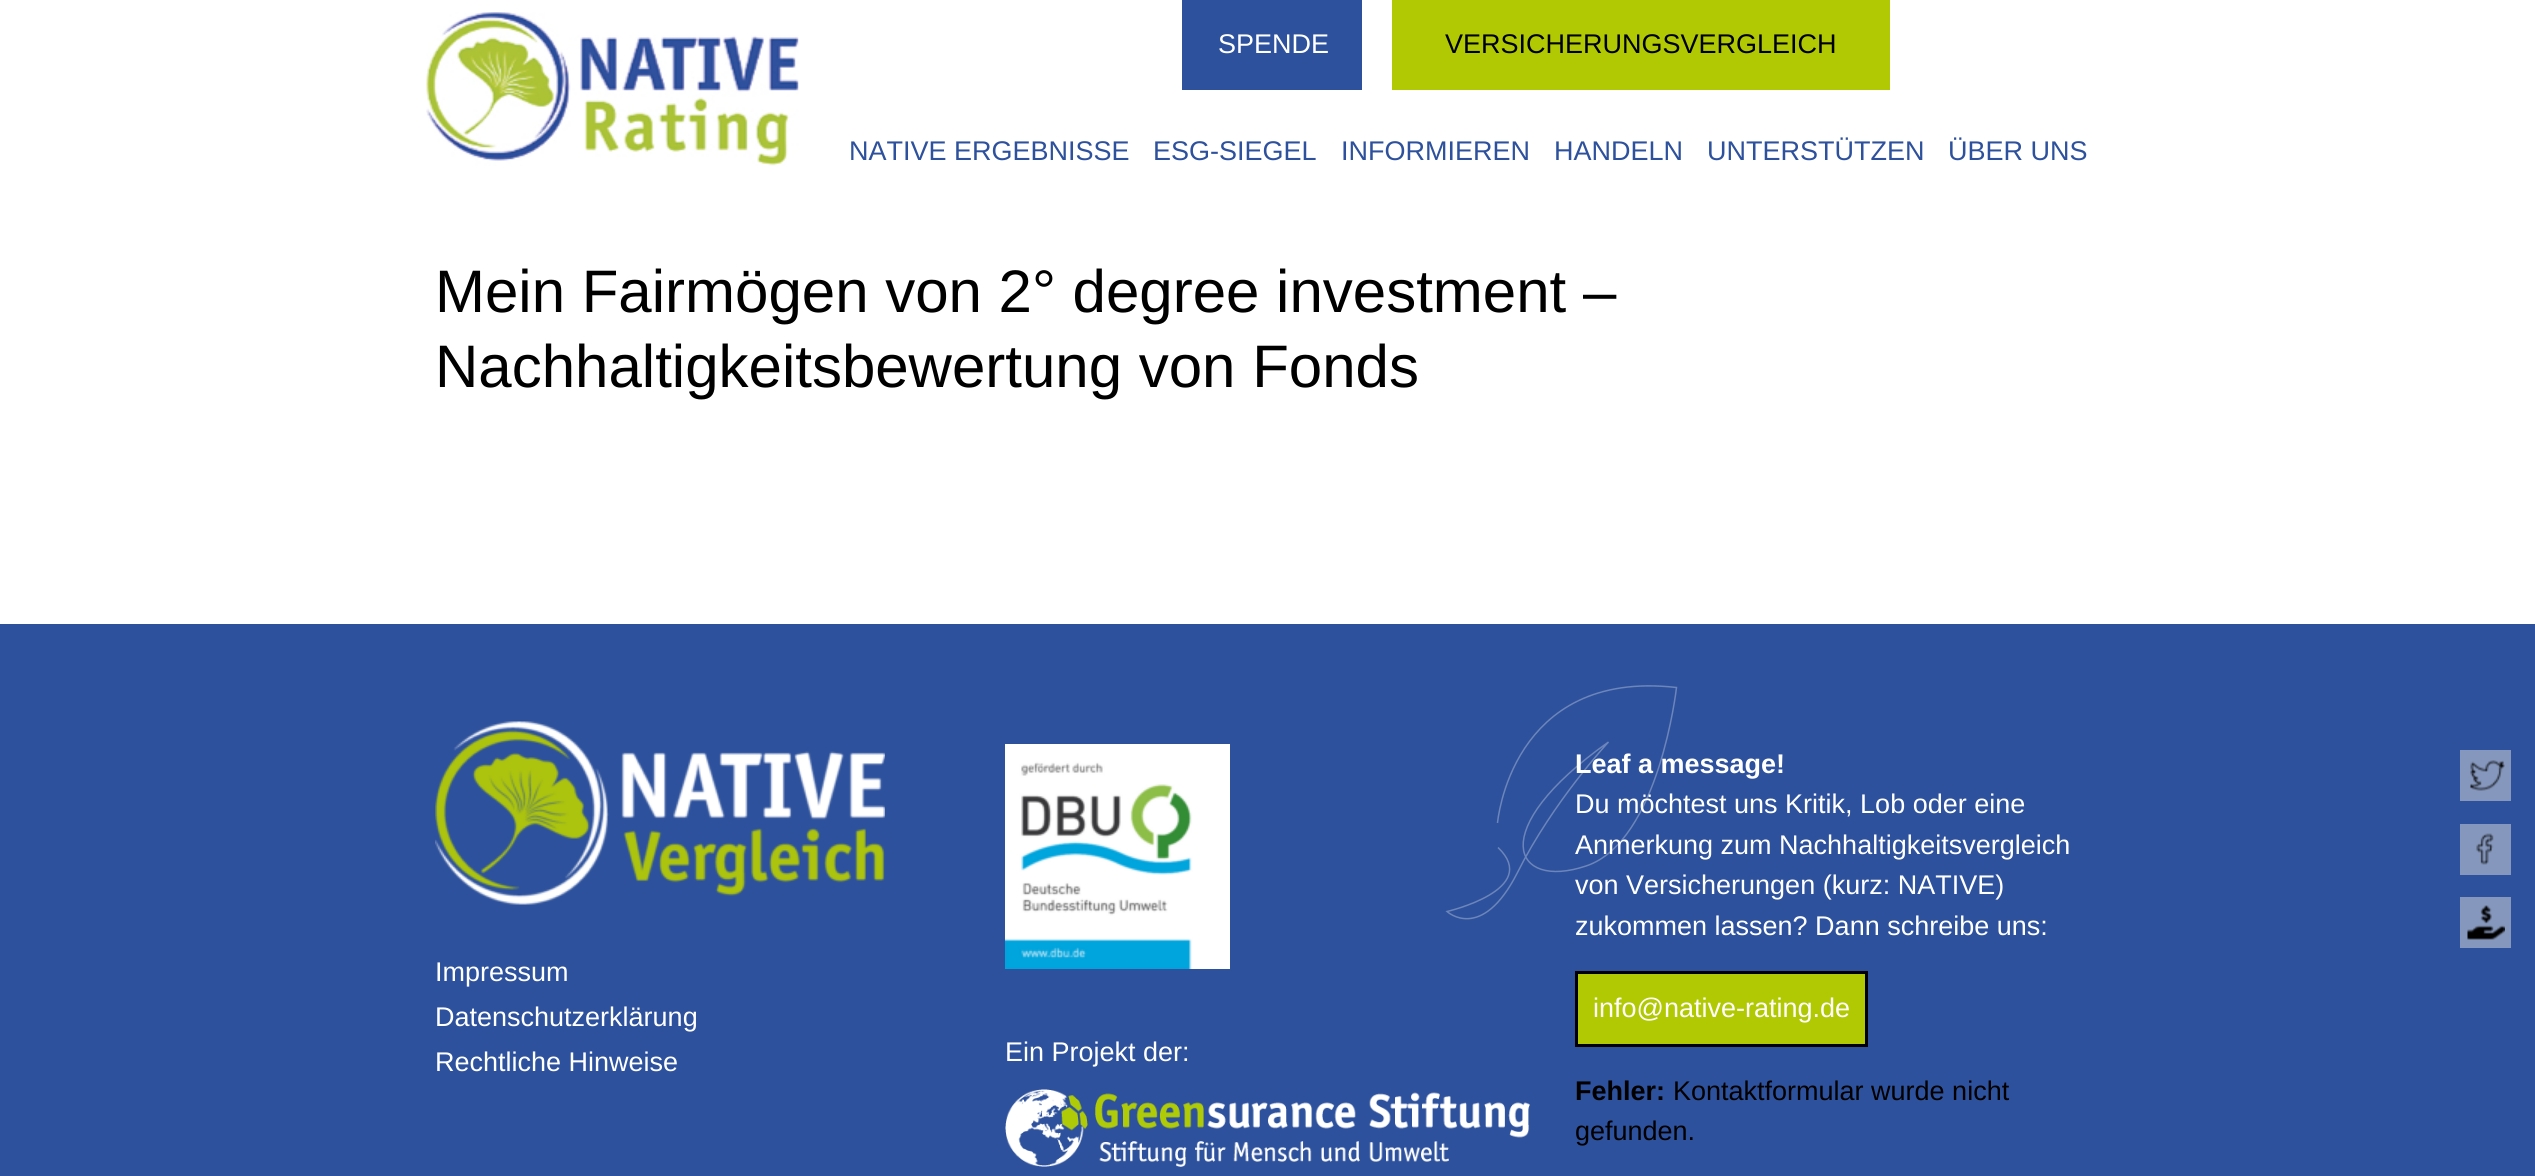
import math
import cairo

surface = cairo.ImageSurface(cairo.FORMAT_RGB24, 2535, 1176)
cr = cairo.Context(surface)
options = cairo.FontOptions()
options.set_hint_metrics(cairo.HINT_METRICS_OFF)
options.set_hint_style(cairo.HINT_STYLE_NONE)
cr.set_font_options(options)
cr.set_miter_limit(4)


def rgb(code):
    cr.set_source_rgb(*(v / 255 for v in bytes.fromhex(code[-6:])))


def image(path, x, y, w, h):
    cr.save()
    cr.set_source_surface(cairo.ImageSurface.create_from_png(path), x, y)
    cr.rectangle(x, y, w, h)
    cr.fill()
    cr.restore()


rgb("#ffffff")
cr.paint()
rgb("#2d519c")
cr.rectangle(1182, 0, 180, 90)
cr.fill()
rgb("#b1c903")
cr.rectangle(1392, 0, 498, 90)
cr.fill()
image("img/1.png", 426, 12, 373, 154)
rgb("#2d519c")
cr.rectangle(0, 624, 2535, 552)
cr.fill()
cr.new_path()
cr.move_to(1497.5, 823)
cr.curve_to(1497.5, 823, 1510.5, 668.5, 1676.5, 687.5)
cr.curve_to(1676.5, 687.5, 1659, 842, 1586, 866)
cr.curve_to(1513, 890.5, 1484, 830, 1608.5, 742)
cr.curve_to(1608.5, 742, 1553, 801.5, 1517.5, 872.5)
cr.curve_to(1481.5, 943.5, 1447, 911.5, 1447, 911.5)
cr.curve_to(1447, 911.5, 1542, 889.5, 1498, 847.5)
rgb("#6c85ba")
cr.set_line_width(1.5)
cr.stroke()
image("img/2.png", 435, 721, 450, 184)
image("img/3.png", 1005, 744, 225, 225)
image("img/4.png", 1005, 1089, 525, 78)
rgb("#b1c903")
cr.rectangle(1576.5, 972.5, 290, 73)
cr.fill_preserve()
rgb("#000000")
cr.set_line_width(3)
cr.stroke()
rgb("#8597bc")
cr.rectangle(2460, 750, 51, 51)
cr.fill()
image("img/5.png", 2470, 760, 35, 31)
cr.rectangle(2460, 824, 51, 51)
cr.fill()
image("img/6.png", 2476, 833, 18, 32)
cr.rectangle(2460, 897, 51, 51)
cr.fill()
image("img/7.png", 2467, 905, 38, 35)
cr.select_font_face("Liberation Sans")
cr.set_font_size(27)
rgb("#ffffff")
cr.move_to(1218, 53)
cr.show_text("SPENDE")
rgb("#000000")
cr.move_to(1445, 53)
cr.show_text("VERSICHERUNGSVERGLEICH")
rgb("#2d519c")
for x, y, s in [
    (849, 160, "NATIVE ERGEBNISSE"),
    (1153, 160, "ESG-SIEGEL"),
    (1341, 160, "INFORMIEREN"),
    (1554, 160, "HANDELN"),
    (1707, 160, "UNTERSTÜTZEN"),
    (1948, 160, "ÜBER UNS"),
]:
    cr.move_to(x, y)
    cr.show_text(s)
cr.set_font_size(60)
rgb("#000000")
cr.move_to(435, 312)
cr.show_text("Mein Fairmögen von 2° degree investment –")
cr.move_to(435, 387)
cr.show_text("Nachhaltigkeitsbewertung von Fonds")
cr.set_font_size(27)
rgb("#ffffff")
for x, y, s in [
    (435, 981, "Impressum"),
    (435, 1026, "Datenschutzerklärung"),
    (435, 1071, "Rechtliche Hinweise"),
    (1005, 1061, "Ein Projekt der:"),
]:
    cr.move_to(x, y)
    cr.show_text(s)
cr.select_font_face("Liberation Sans", cairo.FONT_SLANT_NORMAL, cairo.FONT_WEIGHT_BOLD)
cr.move_to(1575, 773)
cr.show_text("Leaf a message!")
cr.select_font_face("Liberation Sans")
for x, y, s in [
    (1575, 813, "Du möchtest uns Kritik, Lob oder eine"),
    (1575, 854, "Anmerkung zum Nachhaltigkeitsvergleich"),
    (1575, 894, "von Versicherungen (kurz: NATIVE)"),
    (1575, 935, "zukommen lassen? Dann schreibe uns:"),
    (1593, 1017, "info@native-rating.de"),
]:
    cr.move_to(x, y)
    cr.show_text(s)
cr.select_font_face("Liberation Sans", cairo.FONT_SLANT_NORMAL, cairo.FONT_WEIGHT_BOLD)
rgb("#000000")
cr.move_to(1575, 1100)
cr.show_text("Fehler:")
cr.select_font_face("Liberation Sans")
cr.move_to(1673, 1100)
cr.show_text("Kontaktformular wurde nicht")
cr.move_to(1575, 1140)
cr.show_text("gefunden.")
surface.write_to_png("page.png")
